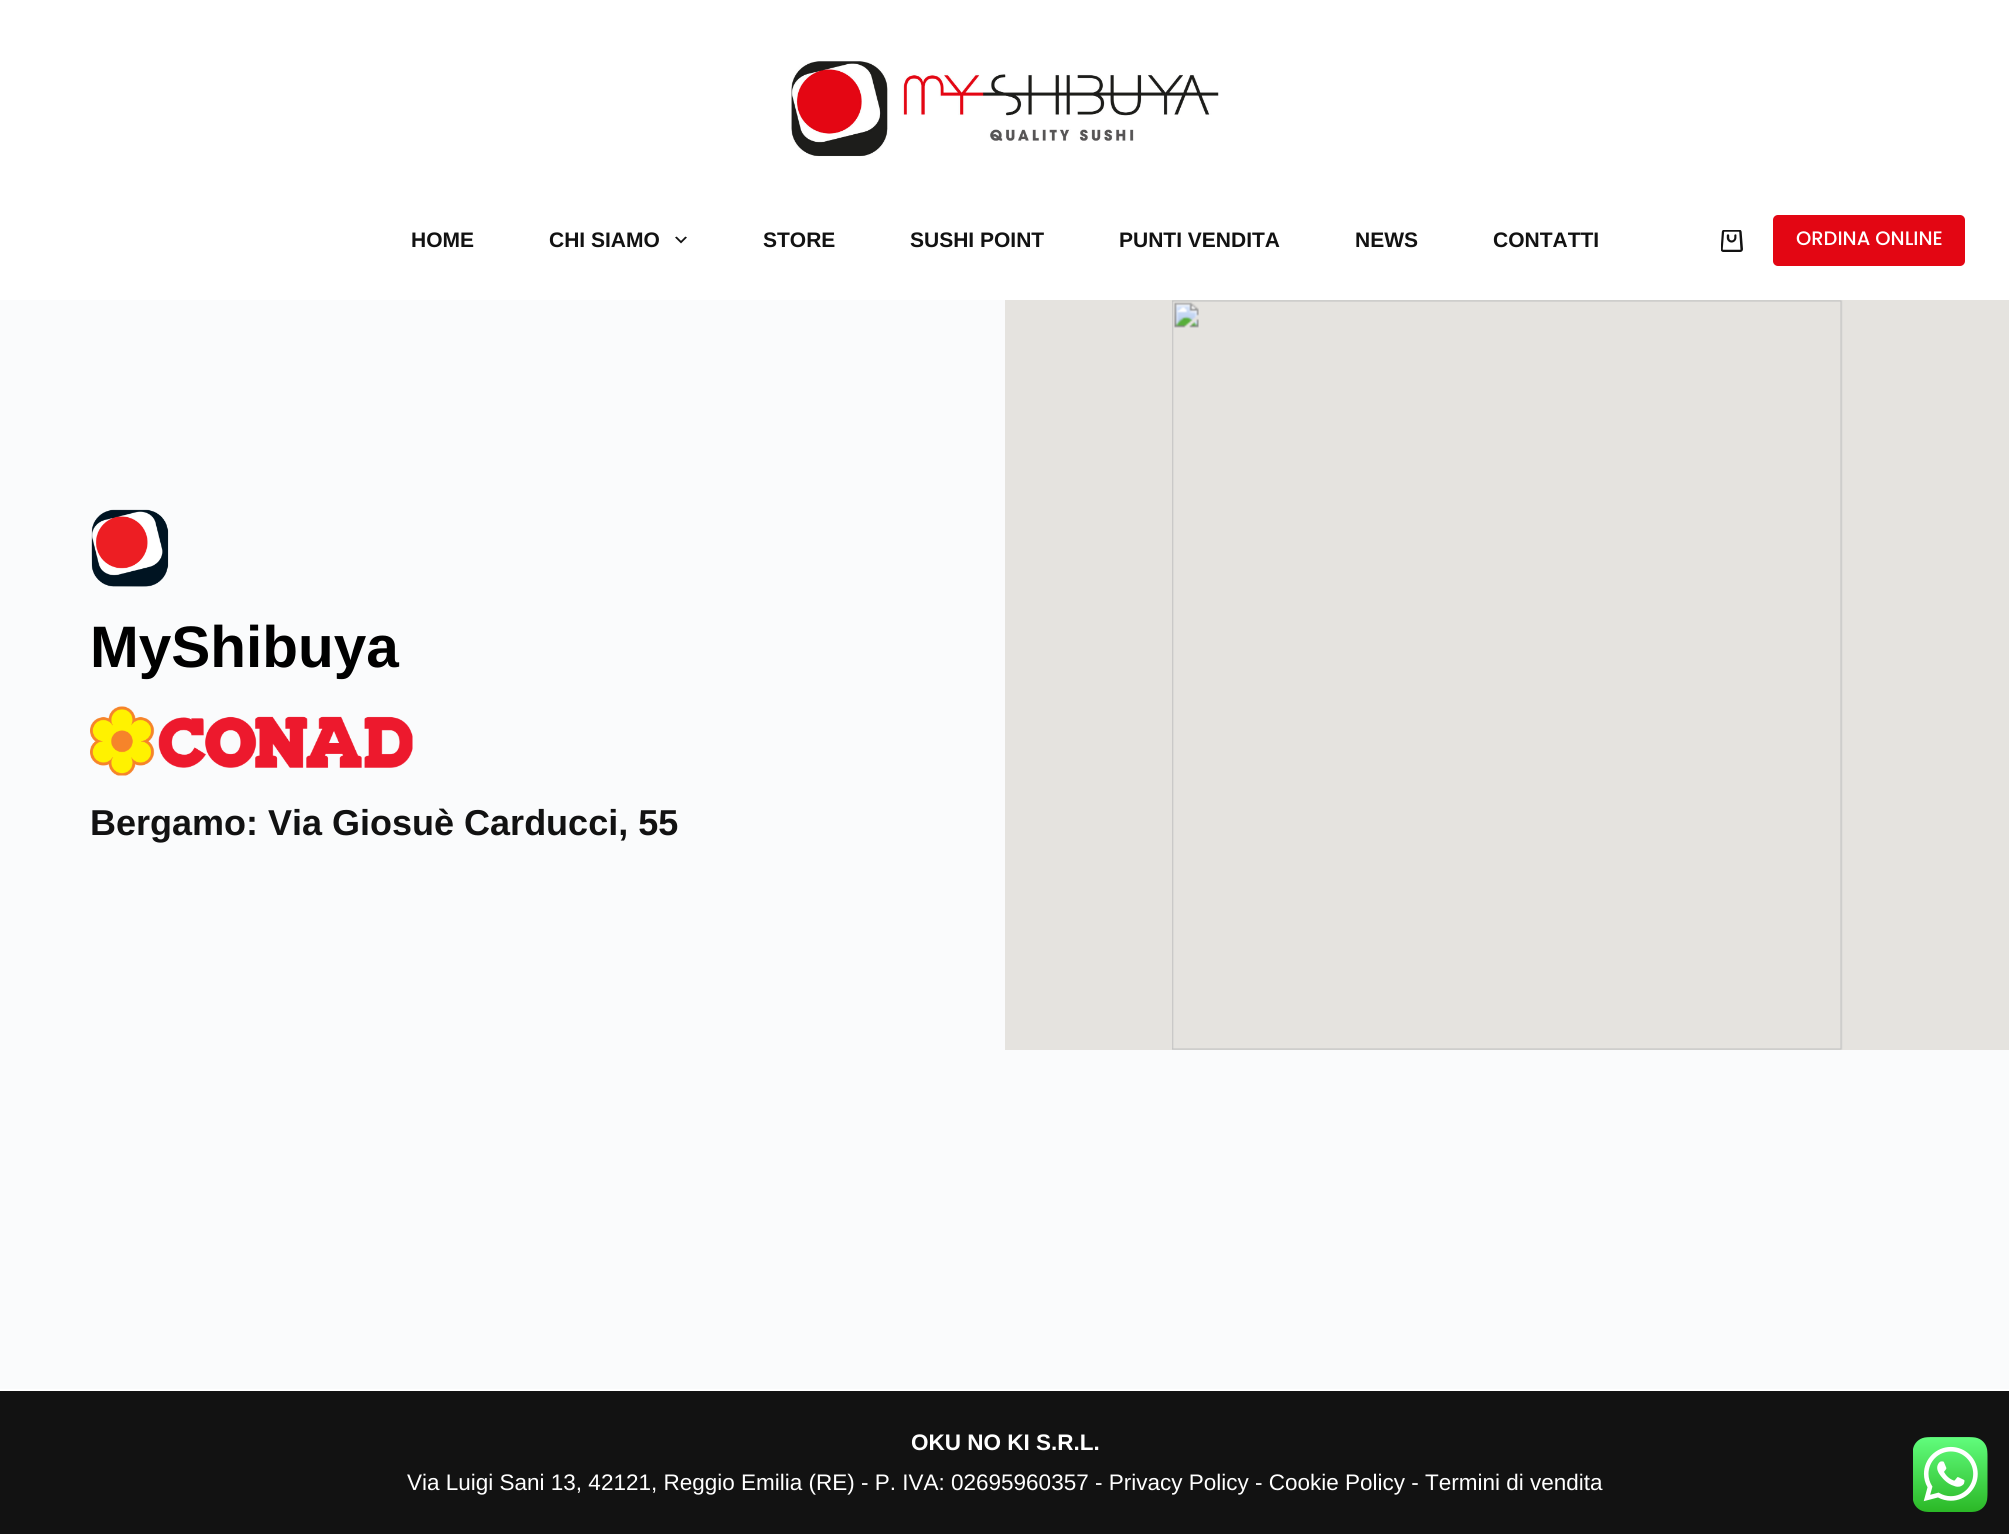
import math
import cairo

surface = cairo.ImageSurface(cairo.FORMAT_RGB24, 2009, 1534)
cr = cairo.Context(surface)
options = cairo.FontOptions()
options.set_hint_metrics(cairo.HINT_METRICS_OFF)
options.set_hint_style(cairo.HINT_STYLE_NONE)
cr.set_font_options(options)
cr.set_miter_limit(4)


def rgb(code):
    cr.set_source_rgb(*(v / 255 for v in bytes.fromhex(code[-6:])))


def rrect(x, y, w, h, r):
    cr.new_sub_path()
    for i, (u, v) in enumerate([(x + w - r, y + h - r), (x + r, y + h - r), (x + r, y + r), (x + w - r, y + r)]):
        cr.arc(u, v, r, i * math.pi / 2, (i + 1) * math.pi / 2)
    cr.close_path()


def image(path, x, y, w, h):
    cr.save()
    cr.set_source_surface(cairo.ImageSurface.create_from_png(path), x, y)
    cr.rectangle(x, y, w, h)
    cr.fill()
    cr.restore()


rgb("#fafbfc")
cr.paint()
rgb("#ffffff")
cr.rectangle(0, 0, 2009, 300)
cr.fill()
image("img/1.png", 791, 61, 428, 96)
image("img/2.png", 675, 236, 12, 8)
image("img/3.png", 1721, 230, 22, 22)
rgb("#e30613")
rrect(1773, 215, 192, 51, 5)
cr.fill()
image("img/4.png", 91, 509, 78, 78)
image("img/5.png", 90, 706, 323, 70)
image("img/6.png", 1005, 300, 1004, 750)
rgb("#121212")
cr.rectangle(0, 1391, 2009, 143)
cr.fill()
rgb("#ffffff")
cr.rectangle(0, 1389, 2009, 2)
cr.fill()
image("img/7.png", 1913, 1437, 75, 75)
cr.select_font_face("Liberation Sans", cairo.FONT_SLANT_NORMAL, cairo.FONT_WEIGHT_BOLD)
cr.set_font_size(21)
rgb("#121212")
for x, y, s in [
    (411, 247, "HOME"),
    (549, 247, "CHI SIAMO"),
    (763, 247, "STORE"),
    (910, 247, "SUSHI POINT"),
    (1119, 247, "PUNTI VENDITA"),
    (1355, 247, "NEWS"),
    (1493, 247, "CONTATTI"),
]:
    cr.move_to(x, y)
    cr.show_text(s)
cr.select_font_face("Poppins Medium")
cr.set_font_size(19.5)
rgb("#ffffff")
cr.move_to(1796, 245)
cr.show_text("ORDINA ONLINE")
cr.select_font_face("Liberation Sans", cairo.FONT_SLANT_NORMAL, cairo.FONT_WEIGHT_BOLD)
cr.set_font_size(58.5)
rgb("#000000")
cr.move_to(90, 667)
cr.show_text("MyShibuya")
cr.set_font_size(36)
rgb("#121212")
cr.move_to(90, 835)
cr.show_text("Bergamo: Via Giosuè Carducci, 55")
cr.set_font_size(22.5)
rgb("#ffffff")
cr.move_to(911, 1450)
cr.show_text("OKU NO KI S.R.L.")
cr.select_font_face("Liberation Sans")
cr.move_to(407, 1490)
cr.show_text("Via Luigi Sani 13, 42121, Reggio Emilia (RE) - P. IVA: 02695960357 - Privacy Policy - Cookie Policy - Termini di vendita")
surface.write_to_png("page.png")
